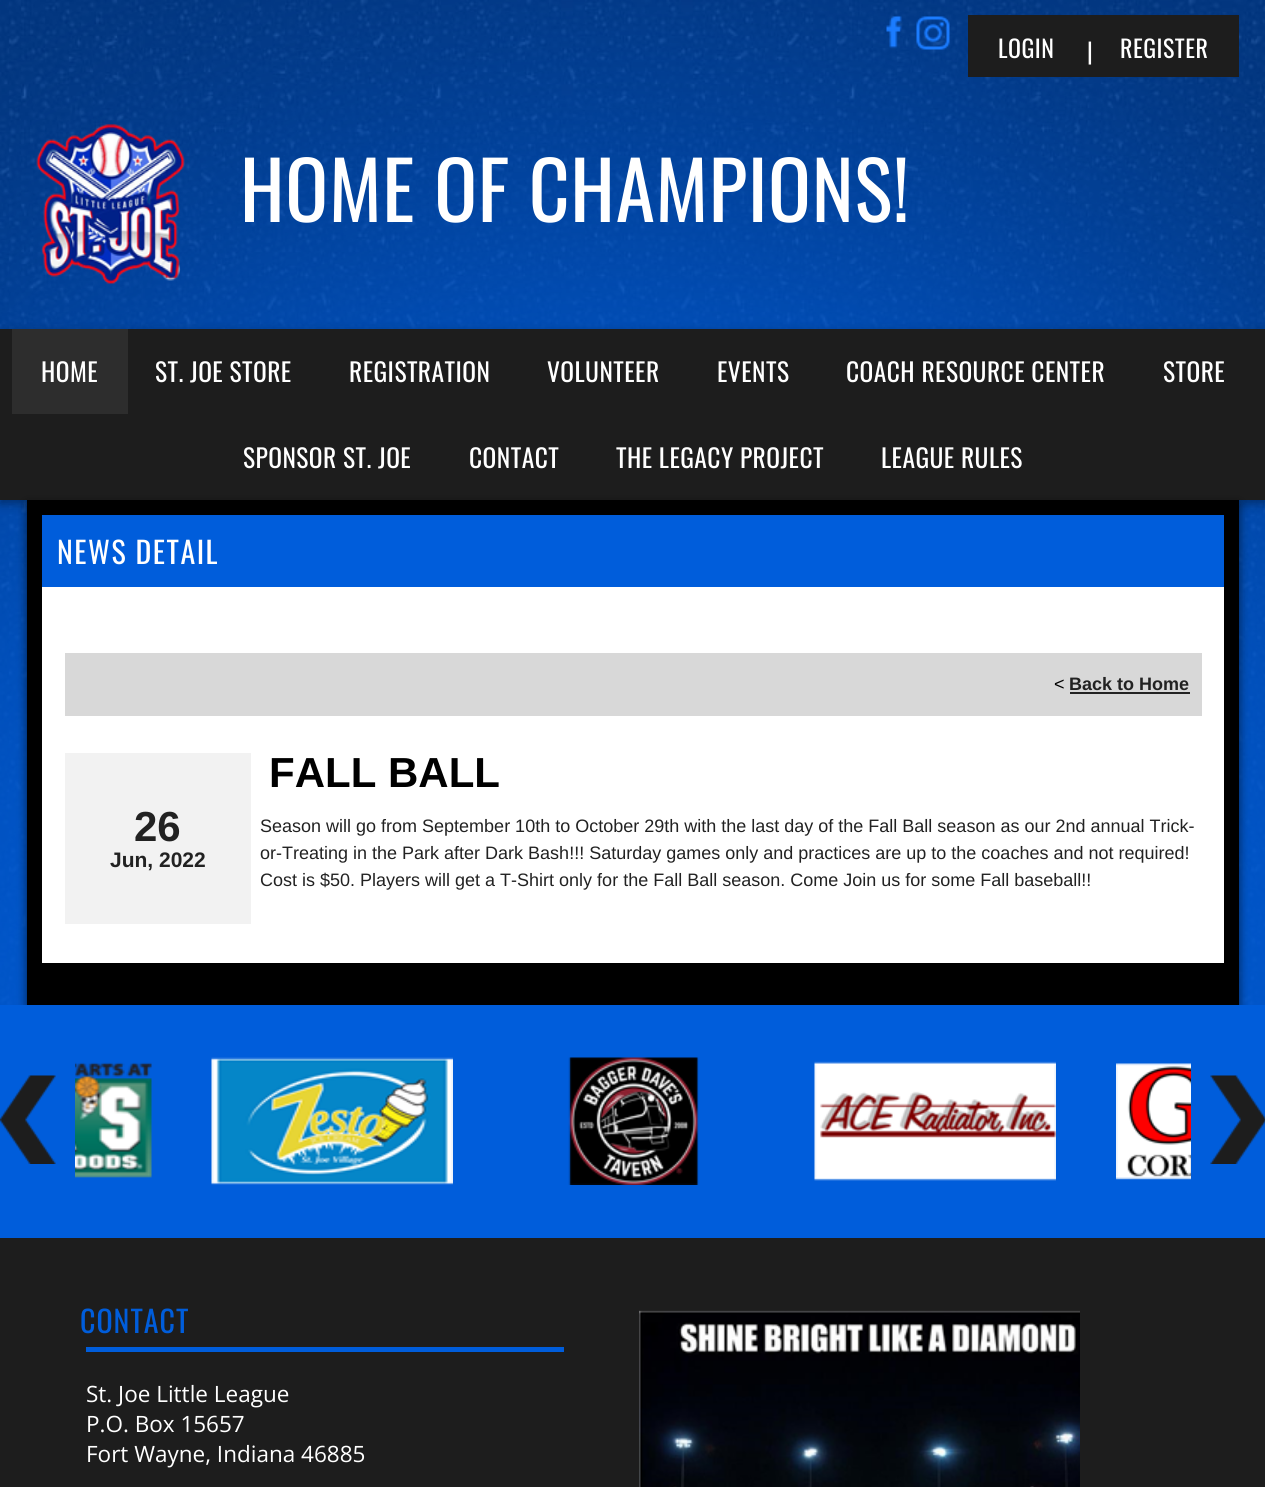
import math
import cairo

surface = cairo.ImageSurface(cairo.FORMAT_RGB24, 1265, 1487)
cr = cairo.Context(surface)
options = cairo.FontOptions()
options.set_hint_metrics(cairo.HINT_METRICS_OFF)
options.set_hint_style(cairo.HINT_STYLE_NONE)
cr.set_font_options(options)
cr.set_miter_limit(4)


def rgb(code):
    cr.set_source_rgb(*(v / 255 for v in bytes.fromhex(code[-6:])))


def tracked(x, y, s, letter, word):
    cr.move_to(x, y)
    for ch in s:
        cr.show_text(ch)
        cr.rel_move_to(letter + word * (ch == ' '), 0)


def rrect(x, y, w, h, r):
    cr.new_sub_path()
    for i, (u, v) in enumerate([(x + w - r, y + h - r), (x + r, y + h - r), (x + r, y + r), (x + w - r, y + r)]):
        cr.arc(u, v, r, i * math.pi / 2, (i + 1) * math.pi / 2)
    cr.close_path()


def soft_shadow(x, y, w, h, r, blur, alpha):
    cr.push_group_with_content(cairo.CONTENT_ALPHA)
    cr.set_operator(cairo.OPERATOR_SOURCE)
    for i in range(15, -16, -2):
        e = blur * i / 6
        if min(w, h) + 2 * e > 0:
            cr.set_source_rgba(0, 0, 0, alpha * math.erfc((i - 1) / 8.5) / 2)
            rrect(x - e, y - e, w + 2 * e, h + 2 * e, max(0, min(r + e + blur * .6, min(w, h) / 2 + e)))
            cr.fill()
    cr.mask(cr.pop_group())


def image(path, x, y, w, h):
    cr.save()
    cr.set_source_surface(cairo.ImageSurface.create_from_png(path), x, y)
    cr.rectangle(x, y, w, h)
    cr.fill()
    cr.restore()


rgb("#ffffff")
cr.paint()
image("img/1.png", 0, 0, 1265, 1005)
image("img/2.png", 0, 0, 1265, 1005)
image("img/3.png", 886, 15, 16, 34)
image("img/4.png", 916, 16, 34, 34)
rgb("#1d1d1d")
cr.rectangle(968, 15, 271, 62)
cr.fill()
image("img/5.png", 36, 124, 149, 161)
rgb("#000000")
soft_shadow(0, 333, 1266, 171, 0, 5, 0.35)
rgb("#1d1d1d")
cr.rectangle(0, 329, 1265, 171)
cr.fill()
rgb("#2d2d2d")
cr.rectangle(12, 329, 116, 85)
cr.fill()
rgb("#000000")
soft_shadow(27, 504, 1212, 506, 0, 5, 0.61)
for x, y, w, h, color in [
    (27, 500, 1212, 505, "#000000"),
    (42, 515, 1182, 72, "#005ddb"),
    (42, 587, 1182, 376, "#ffffff"),
    (65, 653, 1137, 63, "#d8d8d8"),
    (1070, 692, 120, 2, "#222222"),
    (65, 753, 186, 171, "#f2f2f2"),
    (0, 1005, 1265, 233, "#005ddb"),
]:
    rgb(color)
    cr.rectangle(x, y, w, h)
    cr.fill()
image("img/6.png", 0, 1075, 56, 89)
image("img/7.png", 75, 1062, 77, 116)
image("img/8.png", 211, 1057, 242, 128)
image("img/9.png", 568, 1057, 131, 128)
image("img/10.png", 814, 1061, 242, 120)
image("img/11.png", 1116, 1063, 75, 117)
image("img/12.png", 1210, 1075, 55, 89)
rgb("#1d1d1d")
cr.rectangle(0, 1238, 1265, 249)
cr.fill()
rgb("#005ddb")
cr.rectangle(86, 1347, 478, 5)
cr.fill()
image("img/13.png", 639, 1310, 441, 177)
cr.select_font_face("Oswald")
cr.set_font_size(24)
rgb("#ffffff")
for x, y, s in [
    (998, 58, "LOGIN"),
    (1087, 61, "|"),
    (1120, 58, "REGISTER"),
]:
    tracked(x, y, s, 0.5, 0)
cr.set_font_size(79.5)
tracked(240, 222, "HOME OF CHAMPIONS!", 0.75, 0)
cr.set_font_size(25.5)
for x, y, s in [
    (41, 382, "HOME"),
    (155, 382, "ST. JOE STORE"),
    (349, 382, "REGISTRATION"),
    (547, 382, "VOLUNTEER"),
    (717, 382, "EVENTS"),
    (846, 382, "COACH RESOURCE CENTER"),
    (1163, 382, "STORE"),
    (243, 468, "SPONSOR ST. JOE"),
    (469, 468, "CONTACT"),
    (616, 468, "THE LEGACY PROJECT"),
    (881, 468, "LEAGUE RULES"),
]:
    tracked(x, y, s, 0.45, 0)
cr.set_font_size(30)
tracked(57, 564, "NEWS DETAIL", 1.5, 0)
cr.select_font_face("Liberation Sans")
cr.set_font_size(18)
rgb("#000000")
cr.move_to(1054, 690)
cr.show_text("<")
cr.select_font_face("Liberation Sans", cairo.FONT_SLANT_NORMAL, cairo.FONT_WEIGHT_BOLD)
rgb("#222222")
cr.move_to(1069, 690)
cr.show_text("Back to Home")
cr.set_font_size(42)
rgb("#000000")
cr.move_to(269, 787)
cr.show_text("FALL BALL")
rgb("#222222")
cr.move_to(134, 841)
cr.show_text("26")
cr.set_font_size(21)
cr.move_to(110, 867)
cr.show_text("Jun, 2022")
cr.select_font_face("Liberation Sans")
cr.set_font_size(18)
for x, y, s in [
    (260, 832, "Season will go from September 10th to October 29th with the last day of the Fall Ball season as our 2nd annual Trick-"),
    (260, 859, "or-Treating in the Park after Dark Bash!!! Saturday games only and practices are up to the coaches and not required!"),
    (260, 886, "Cost is $50. Players will get a T-Shirt only for the Fall Ball season. Come Join us for some Fall baseball!!"),
]:
    cr.move_to(x, y)
    cr.show_text(s)
cr.select_font_face("Oswald")
cr.set_font_size(30)
rgb("#005ddb")
tracked(80, 1333, "CONTACT", 1, 0)
cr.select_font_face("Open Sans")
cr.set_font_size(22.5)
rgb("#ffffff")
for x, y, s in [
    (86, 1402, "St. Joe Little League"),
    (86, 1432, "P.O. Box 15657"),
    (86, 1462, "Fort Wayne, Indiana 46885"),
]:
    cr.move_to(x, y)
    cr.show_text(s)
surface.write_to_png("page.png")
